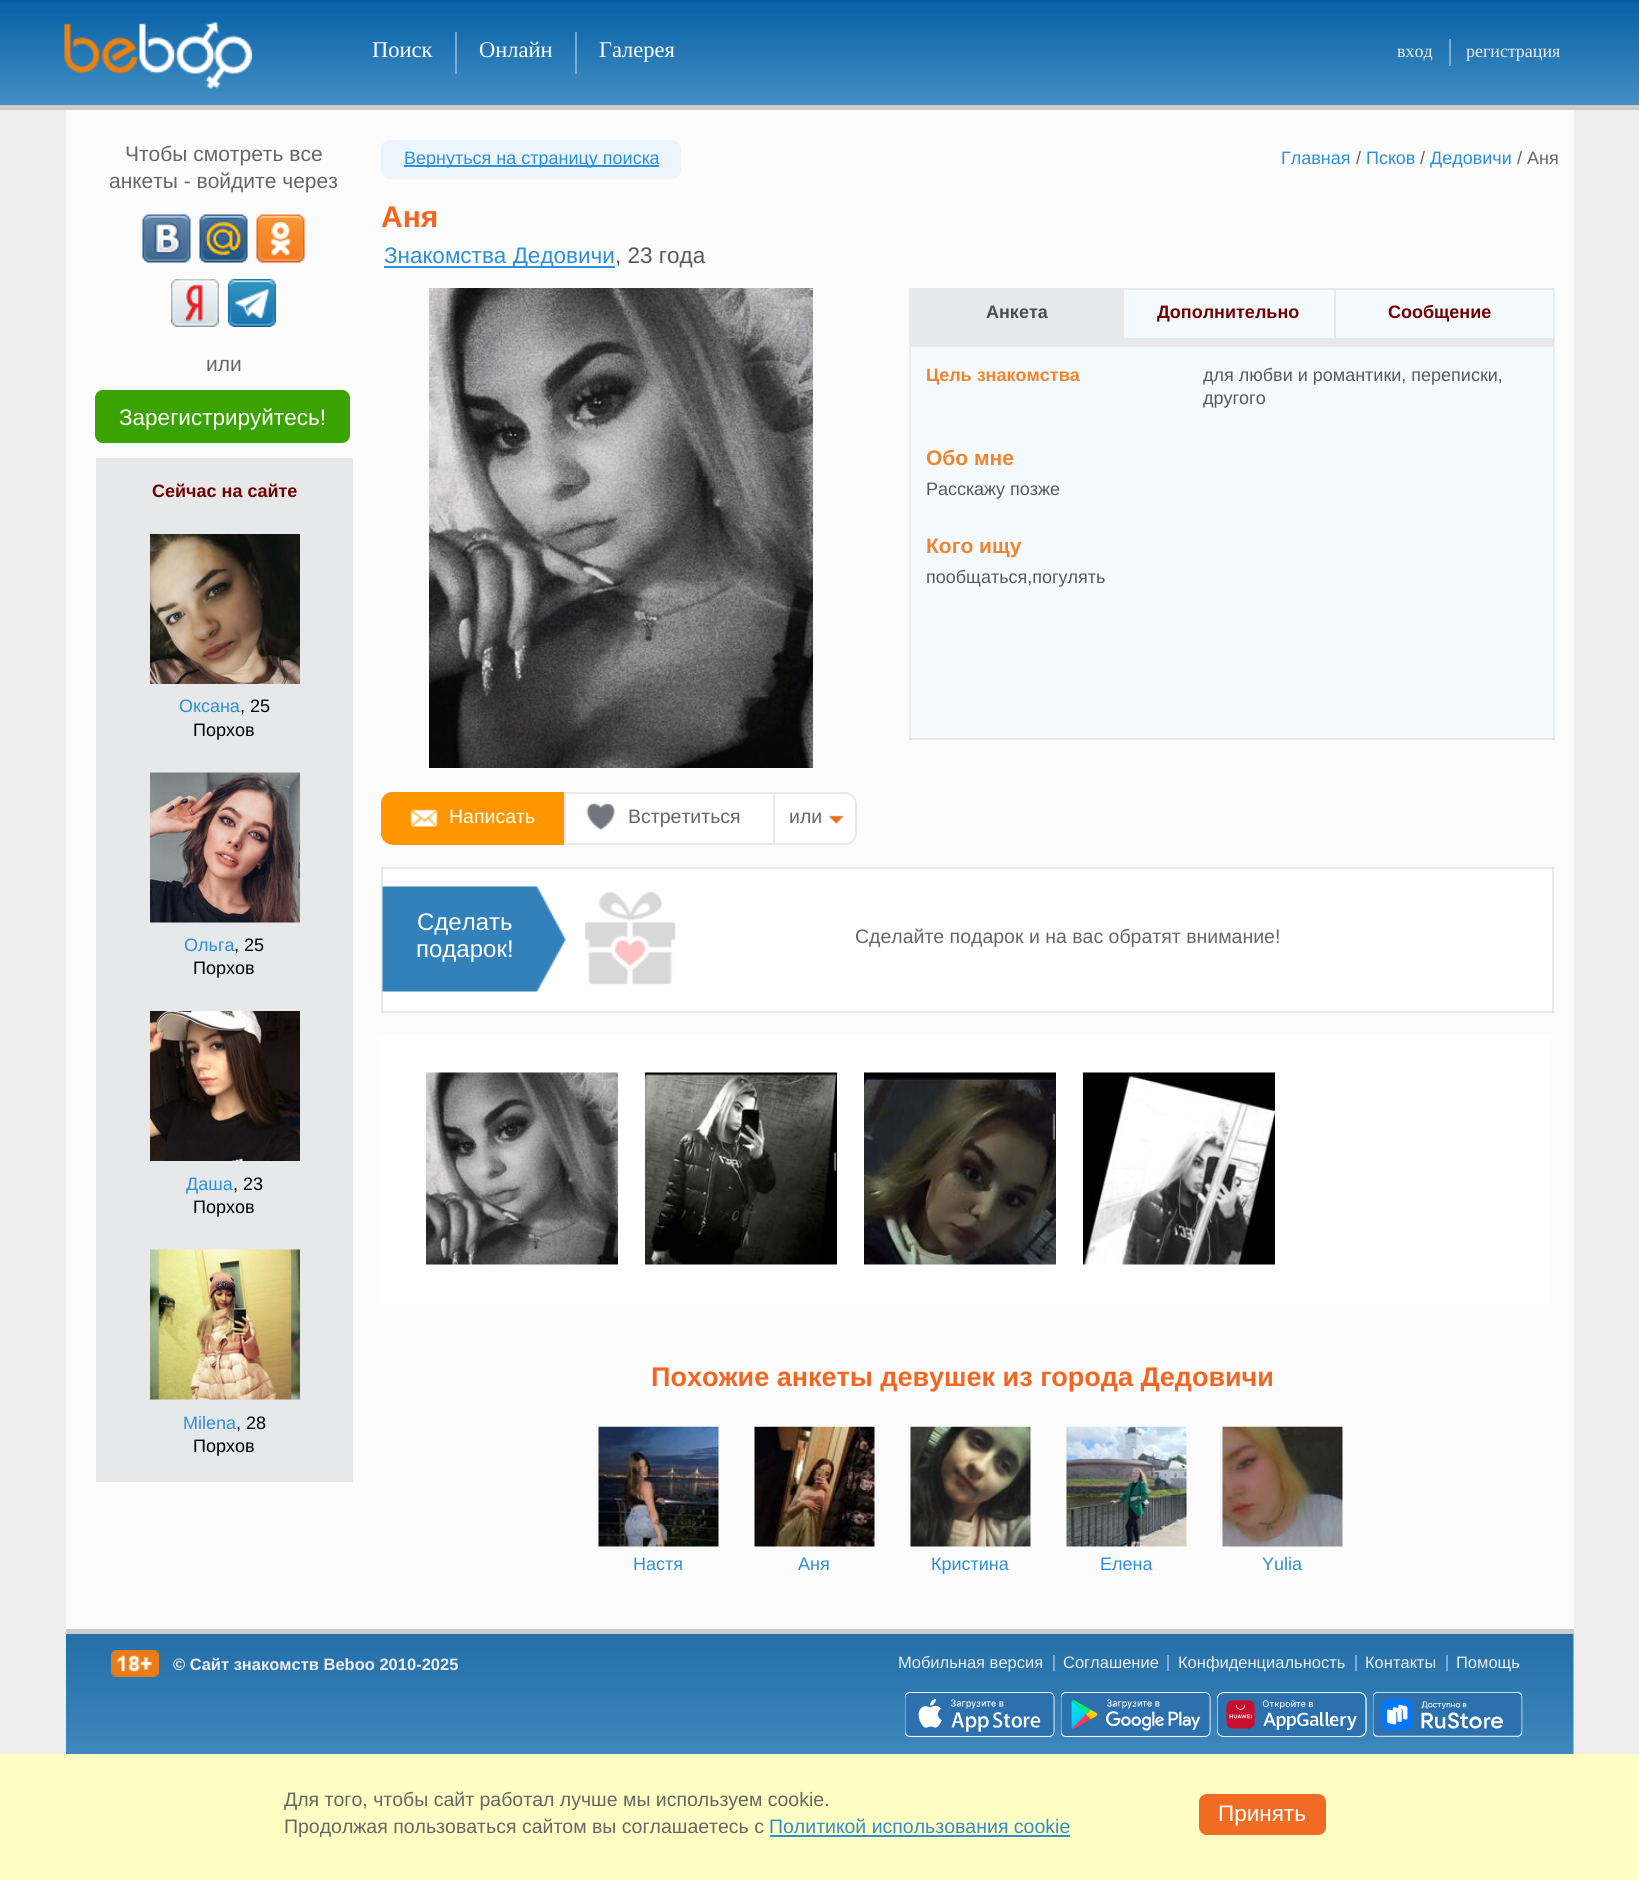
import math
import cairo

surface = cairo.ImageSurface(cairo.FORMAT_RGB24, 1639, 1880)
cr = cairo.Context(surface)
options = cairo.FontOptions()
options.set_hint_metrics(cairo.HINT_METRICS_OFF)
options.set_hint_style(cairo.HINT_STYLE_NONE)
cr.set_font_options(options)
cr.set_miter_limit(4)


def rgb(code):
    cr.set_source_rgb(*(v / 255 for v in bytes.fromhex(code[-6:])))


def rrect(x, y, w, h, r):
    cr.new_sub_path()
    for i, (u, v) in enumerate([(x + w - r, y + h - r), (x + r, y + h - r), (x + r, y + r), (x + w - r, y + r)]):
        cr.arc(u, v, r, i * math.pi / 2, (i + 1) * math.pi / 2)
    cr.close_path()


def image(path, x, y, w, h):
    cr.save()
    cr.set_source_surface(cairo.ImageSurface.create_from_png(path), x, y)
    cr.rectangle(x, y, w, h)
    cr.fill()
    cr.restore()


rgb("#eeeeee")
cr.paint()
image("img/1.png", 0, 0, 1639, 105)
rgb("#cbcbc9")
cr.rectangle(0, 105, 1639, 5)
cr.fill()
image("img/2.png", 64, 22, 188, 68)
for x, y, w, h, color in [
    (455, 32, 2, 42, "#7cacd3"),
    (575, 32, 2, 42, "#7cacd3"),
    (1449, 39, 2, 27, "#7cacd3"),
    (66, 110, 1508, 1519, "#fcfcfc"),
]:
    rgb(color)
    cr.rectangle(x, y, w, h)
    cr.fill()
image("img/3.png", 142, 214, 49, 49)
image("img/4.png", 199, 214, 49, 49)
image("img/5.png", 256, 214, 49, 49)
image("img/6.png", 171, 279, 48, 48)
image("img/7.png", 228, 279, 48, 48)
rgb("#3ba300")
rrect(95, 390, 255, 53, 8)
cr.fill()
rgb("#e7e8e9")
cr.rectangle(96, 458, 257, 1024)
cr.fill()
image("img/8.png", 150, 534, 150, 150)
image("img/9.png", 150, 772, 150, 151)
image("img/10.png", 150, 1011, 150, 150)
image("img/11.png", 150, 1249, 150, 151)
rgb("#ecf5fb")
rrect(381, 140, 300, 39, 9)
cr.fill()
for x, y, w, h, color in [
    (404, 165, 255, 2, "#2c8fdb"),
    (384, 266, 231, 2, "#2c8fdb"),
    (911, 290, 642, 448, "#f5faff"),
    (909, 288, 645, 2, "#e7e8e9"),
    (1553, 288, 2, 452, "#e7e8e9"),
    (909, 288, 2, 50, "#e7e8e9"),
    (911, 290, 213, 48, "#e7e8e9"),
    (1334, 290, 2, 48, "#e7e8e9"),
    (911, 338, 642, 9, "#e7e8e9"),
    (909, 738, 645, 2, "#e7e8e9"),
    (909, 338, 2, 402, "#e7e8e9"),
]:
    rgb(color)
    cr.rectangle(x, y, w, h)
    cr.fill()
image("img/12.png", 429, 288, 384, 480)
rgb("#ff9600")
cr.new_path()
cr.move_to(393, 792)
cr.line_to(564, 792)
cr.line_to(564, 845)
cr.line_to(393, 845)
cr.curve_to(386.5, 845, 381, 839.5, 381, 833)
cr.line_to(381, 804)
cr.curve_to(381, 797.5, 386.5, 792, 393, 792)
cr.close_path()
cr.fill()
image("img/13.png", 410, 809, 29, 18)
cr.set_fill_rule(cairo.FILL_RULE_EVEN_ODD)
cr.new_path()
cr.move_to(393, 792)
cr.line_to(564, 792)
cr.line_to(564, 844)
cr.line_to(393, 844)
cr.curve_to(386, 844, 381, 839, 381, 832)
cr.line_to(381, 804)
cr.curve_to(381, 797, 386, 792, 393, 792)
cr.close_path()
cr.move_to(393, 794)
cr.line_to(564, 794)
cr.line_to(564, 843)
cr.line_to(393, 843)
cr.curve_to(387, 843, 382, 838, 382, 832)
cr.line_to(382, 804)
cr.curve_to(382, 798, 387, 794, 393, 794)
cr.close_path()
cr.fill()
rgb("#ffffff")
cr.rectangle(566, 794, 207, 49)
cr.fill()
image("img/14.png", 586, 803, 30, 27)
for x, y, w, h, color in [
    (564, 792, 209, 2, "#e8e8ea"),
    (564, 843, 209, 2, "#e8e8ea"),
    (564, 792, 2, 53, "#e8e8ea"),
]:
    rgb(color)
    cr.rectangle(x, y, w, h)
    cr.fill()
rgb("#ffffff")
cr.new_path()
cr.move_to(773, 792)
cr.line_to(845, 792)
cr.curve_to(851.5, 792, 857, 797.5, 857, 804)
cr.line_to(857, 833)
cr.curve_to(857, 839.5, 851.5, 845, 845, 845)
cr.line_to(773, 845)
cr.close_path()
cr.fill()
image("img/15.png", 829, 815, 15, 9)
cr.new_path()
cr.move_to(774, 793)
cr.line_to(845, 793)
cr.curve_to(851, 793, 856, 798, 856, 804)
cr.line_to(856, 833)
cr.curve_to(856, 839, 851, 844, 845, 844)
cr.line_to(774, 844)
cr.close_path()
rgb("#e8e8ea")
cr.stroke()
rgb("#ffffff")
cr.rectangle(382, 868, 1171, 144)
cr.fill_preserve()
rgb("#e8e9eb")
cr.stroke()
image("img/16.png", 382, 886, 184, 106)
image("img/17.png", 584, 891, 92, 94)
rgb("#ffffff")
cr.rectangle(381, 1035, 1170, 269)
cr.fill()
image("img/18.png", 426, 1072, 192, 193)
image("img/19.png", 645, 1072, 192, 193)
image("img/20.png", 864, 1072, 192, 193)
image("img/21.png", 1083, 1072, 192, 193)
image("img/22.png", 598, 1426, 121, 121)
image("img/23.png", 754, 1426, 121, 121)
image("img/24.png", 910, 1426, 121, 121)
image("img/25.png", 1066, 1426, 121, 121)
image("img/26.png", 1222, 1426, 121, 121)
image("img/27.png", 66, 1634, 1508, 120)
rgb("#cbcbcb")
cr.rectangle(66, 1629, 1508, 5)
cr.fill()
image("img/28.png", 111, 1650, 48, 27)
for x, y, w, h, color in [
    (1053, 1655, 2, 16, "#7cacd3"),
    (1167, 1655, 2, 16, "#7cacd3"),
    (1355, 1655, 2, 16, "#7cacd3"),
    (1446, 1655, 2, 16, "#7cacd3"),
]:
    rgb(color)
    cr.rectangle(x, y, w, h)
    cr.fill()
image("img/29.png", 905, 1692, 150, 45)
image("img/30.png", 1061, 1692, 150, 45)
image("img/31.png", 1217, 1692, 150, 45)
image("img/32.png", 1373, 1692, 150, 45)
rgb("#ffffc3")
cr.rectangle(0, 1754, 1639, 126)
cr.fill()
rgb("#318dcd")
cr.rectangle(770, 1835, 300, 2)
cr.fill()
rgb("#f26b23")
rrect(1199, 1794, 127, 41, 8)
cr.fill()
cr.select_font_face("Liberation Serif")
cr.set_font_size(22.5)
rgb("#ffffff")
for x, y, s in [
    (372, 57, "Поиск"),
    (479, 57, "Онлайн"),
    (599, 57, "Галерея"),
]:
    cr.move_to(x, y)
    cr.show_text(s)
cr.set_font_size(18)
rgb("#ededed")
cr.move_to(1397, 57)
cr.show_text("вход")
cr.move_to(1466, 57)
cr.show_text("регистрация")
cr.select_font_face("Liberation Sans")
cr.set_font_size(21)
rgb("#666666")
for x, y, s in [
    (125, 161, "Чтобы смотреть все"),
    (109, 188, "анкеты - войдите через"),
    (206, 371, "или"),
]:
    cr.move_to(x, y)
    cr.show_text(s)
cr.set_font_size(22.5)
rgb("#ffffff")
cr.move_to(119, 425)
cr.show_text("Зарегистрируйтесь!")
cr.select_font_face("Liberation Sans", cairo.FONT_SLANT_NORMAL, cairo.FONT_WEIGHT_BOLD)
cr.set_font_size(18)
rgb("#710000")
cr.move_to(152, 497)
cr.show_text("Сейчас на сайте")
cr.select_font_face("Liberation Sans")
rgb("#2c8fdb")
cr.move_to(179, 712)
cr.show_text("Оксана")
rgb("#000000")
cr.move_to(240, 712)
cr.show_text(", 25")
cr.move_to(193, 736)
cr.show_text("Порхов")
rgb("#2c8fdb")
cr.move_to(184, 951)
cr.show_text("Ольга")
rgb("#000000")
cr.move_to(234, 951)
cr.show_text(", 25")
cr.move_to(193, 974)
cr.show_text("Порхов")
rgb("#2c8fdb")
cr.move_to(186, 1190)
cr.show_text("Даша")
rgb("#000000")
cr.move_to(233, 1190)
cr.show_text(", 23")
cr.move_to(193, 1213)
cr.show_text("Порхов")
rgb("#2c8fdb")
cr.move_to(183, 1429)
cr.show_text("Milena")
rgb("#000000")
cr.move_to(236, 1429)
cr.show_text(", 28")
cr.move_to(193, 1452)
cr.show_text("Порхов")
rgb("#2c8fdb")
cr.move_to(404, 164)
cr.show_text("Вернуться на страницу поиска")
cr.move_to(1281, 164)
cr.show_text("Главная")
rgb("#666666")
cr.move_to(1356, 164)
cr.show_text("/")
rgb("#2c8fdb")
cr.move_to(1366, 164)
cr.show_text("Псков")
rgb("#666666")
cr.move_to(1420, 164)
cr.show_text("/")
rgb("#2c8fdb")
cr.move_to(1430, 164)
cr.show_text("Дедовичи")
rgb("#666666")
cr.move_to(1517, 164)
cr.show_text("/ Аня")
cr.select_font_face("Liberation Sans", cairo.FONT_SLANT_NORMAL, cairo.FONT_WEIGHT_BOLD)
cr.set_font_size(30)
rgb("#f26622")
cr.move_to(381, 227)
cr.show_text("Аня")
cr.select_font_face("Liberation Sans")
cr.set_font_size(22.5)
rgb("#2c8fdb")
cr.move_to(384, 263)
cr.show_text("Знакомства Дедовичи")
rgb("#58595b")
cr.move_to(615, 263)
cr.show_text(", 23 года")
cr.select_font_face("Liberation Sans", cairo.FONT_SLANT_NORMAL, cairo.FONT_WEIGHT_BOLD)
cr.set_font_size(18)
rgb("#4d4d4f")
cr.move_to(986, 318)
cr.show_text("Анкета")
rgb("#710000")
cr.move_to(1157, 318)
cr.show_text("Дополнительно")
cr.move_to(1388, 318)
cr.show_text("Сообщение")
rgb("#f0852f")
cr.move_to(926, 381)
cr.show_text("Цель знакомства")
cr.select_font_face("Liberation Sans")
rgb("#58595b")
cr.move_to(1203, 381)
cr.show_text("для любви и романтики, переписки,")
cr.move_to(1203, 404)
cr.show_text("другого")
cr.select_font_face("Liberation Sans", cairo.FONT_SLANT_NORMAL, cairo.FONT_WEIGHT_BOLD)
cr.set_font_size(21)
rgb("#f0852f")
cr.move_to(926, 465)
cr.show_text("Обо мне")
cr.select_font_face("Liberation Sans")
cr.set_font_size(18)
rgb("#58595b")
cr.move_to(926, 495)
cr.show_text("Расскажу позже")
cr.select_font_face("Liberation Sans", cairo.FONT_SLANT_NORMAL, cairo.FONT_WEIGHT_BOLD)
cr.set_font_size(21)
rgb("#f0852f")
cr.move_to(926, 553)
cr.show_text("Кого ищу")
cr.select_font_face("Liberation Sans")
cr.set_font_size(18)
rgb("#58595b")
cr.move_to(926, 583)
cr.show_text("пообщаться,погулять")
cr.set_font_size(19.5)
rgb("#ffffff")
cr.move_to(449, 823)
cr.show_text("Написать")
rgb("#666666")
cr.move_to(628, 823)
cr.show_text("Встретиться")
cr.move_to(789, 823)
cr.show_text("или")
cr.set_font_size(24)
rgb("#ffffff")
cr.move_to(417, 930)
cr.show_text("Сделать")
cr.move_to(416, 957)
cr.show_text("подарок!")
cr.set_font_size(19.5)
rgb("#666666")
cr.move_to(855, 943)
cr.show_text("Сделайте подарок и на вас обратят внимание!")
cr.select_font_face("Liberation Sans", cairo.FONT_SLANT_NORMAL, cairo.FONT_WEIGHT_BOLD)
cr.set_font_size(27)
rgb("#f26622")
cr.move_to(651, 1386)
cr.show_text("Похожие анкеты девушек из города Дедовичи")
cr.select_font_face("Liberation Sans")
cr.set_font_size(18)
rgb("#2c8fdb")
for x, y, s in [
    (633, 1570, "Настя"),
    (798, 1570, "Аня"),
    (931, 1570, "Кристина"),
    (1100, 1570, "Елена"),
    (1262, 1570, "Yulia"),
]:
    cr.move_to(x, y)
    cr.show_text(s)
cr.select_font_face("Liberation Sans", cairo.FONT_SLANT_NORMAL, cairo.FONT_WEIGHT_BOLD)
cr.set_font_size(16.5)
rgb("#ededed")
cr.move_to(173, 1670)
cr.show_text("© Сайт знакомств Beboo 2010-2025")
cr.select_font_face("Liberation Sans")
for x, y, s in [
    (898, 1668, "Мобильная версия"),
    (1063, 1668, "Соглашение"),
    (1178, 1668, "Конфиденциальность"),
    (1365, 1668, "Контакты"),
    (1456, 1668, "Помощь"),
]:
    cr.move_to(x, y)
    cr.show_text(s)
cr.set_font_size(19.5)
rgb("#666666")
cr.move_to(284, 1806)
cr.show_text("Для того, чтобы сайт работал лучше мы используем cookie.")
cr.move_to(284, 1833)
cr.show_text("Продолжая пользоваться сайтом вы соглашаетесь с")
rgb("#318dcd")
cr.move_to(769, 1833)
cr.show_text("Политикой использования cookie")
cr.set_font_size(22.5)
rgb("#ffffff")
cr.move_to(1218, 1821)
cr.show_text("Принять")
surface.write_to_png("page.png")
